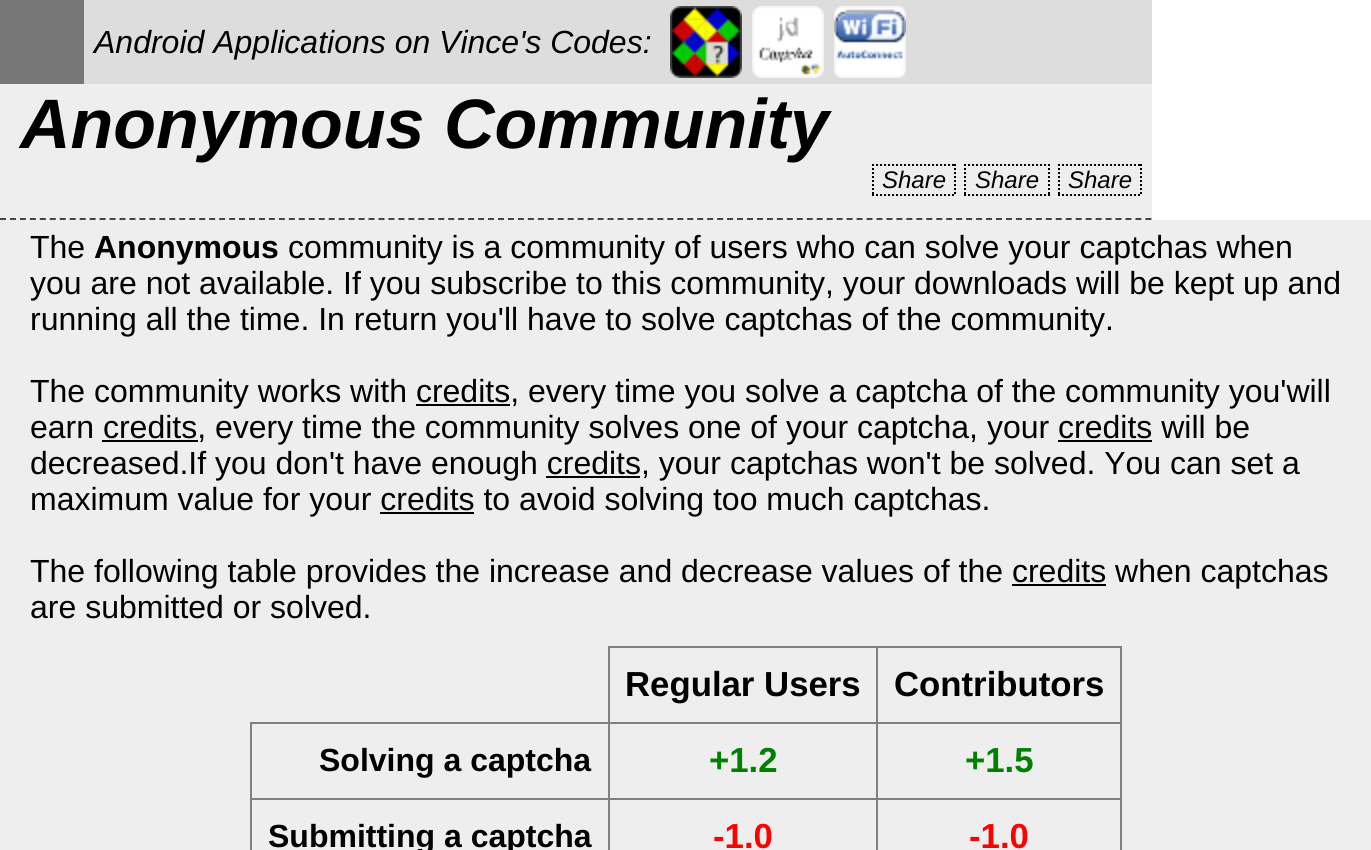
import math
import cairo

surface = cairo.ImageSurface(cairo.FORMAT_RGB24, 1371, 850)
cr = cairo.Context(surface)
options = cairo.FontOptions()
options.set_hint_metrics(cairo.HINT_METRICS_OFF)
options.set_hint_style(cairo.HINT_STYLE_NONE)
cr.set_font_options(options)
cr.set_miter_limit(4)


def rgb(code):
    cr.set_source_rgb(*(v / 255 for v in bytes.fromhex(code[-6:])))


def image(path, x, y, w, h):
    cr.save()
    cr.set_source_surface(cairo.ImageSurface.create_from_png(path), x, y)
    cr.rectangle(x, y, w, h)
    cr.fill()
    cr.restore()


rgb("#eeeeee")
cr.paint()
rgb("#777777")
cr.rectangle(0, 0, 84, 84)
cr.fill()
rgb("#dddddd")
cr.rectangle(84, 0, 1068, 84)
cr.fill()
image("img/1.png", 670, 6, 72, 72)
image("img/2.png", 752, 6, 72, 72)
image("img/3.png", 834, 6, 72, 72)
rgb("#ffffff")
cr.rectangle(1152, 0, 219, 220)
cr.fill()
cr.new_path()
cr.move_to(0, 219)
cr.line_to(1152, 219)
rgb("#444444")
cr.set_dash([6, 3.96])
cr.stroke()
cr.new_path()
cr.move_to(872, 165)
cr.line_to(956, 165)
rgb("#000000")
cr.set_dash([2, 2])
cr.stroke()
cr.new_path()
cr.move_to(955, 164)
cr.line_to(955, 196)
cr.stroke()
cr.new_path()
cr.move_to(872, 195)
cr.line_to(956, 195)
cr.stroke()
cr.new_path()
cr.move_to(873, 164)
cr.line_to(873, 196)
cr.stroke()
cr.new_path()
cr.move_to(964, 165)
cr.line_to(1050, 165)
cr.stroke()
cr.new_path()
cr.move_to(1049, 164)
cr.line_to(1049, 196)
cr.stroke()
cr.new_path()
cr.move_to(964, 195)
cr.line_to(1050, 195)
cr.stroke()
cr.new_path()
cr.move_to(965, 164)
cr.line_to(965, 196)
cr.stroke()
cr.new_path()
cr.move_to(1058, 165)
cr.line_to(1142, 165)
cr.stroke()
cr.new_path()
cr.move_to(1141, 164)
cr.line_to(1141, 196)
cr.stroke()
cr.new_path()
cr.move_to(1058, 195)
cr.line_to(1142, 195)
cr.stroke()
cr.new_path()
cr.move_to(1059, 164)
cr.line_to(1059, 196)
cr.stroke()
for x, y, w, h, color in [
    (416, 404, 94, 2, "#000000"),
    (102, 440, 96, 2, "#000000"),
    (1058, 440, 94, 2, "#000000"),
    (546, 476, 94, 2, "#000000"),
    (380, 512, 94, 2, "#000000"),
    (1012, 584, 94, 2, "#000000"),
    (876, 646, 246, 2, "#808080"),
    (876, 722, 246, 2, "#808080"),
    (876, 798, 246, 2, "#808080"),
    (876, 798, 2, 52, "#808080"),
    (608, 798, 270, 2, "#808080"),
    (876, 722, 2, 78, "#808080"),
    (608, 722, 270, 2, "#808080"),
    (876, 646, 2, 78, "#808080"),
    (608, 646, 270, 2, "#808080"),
    (608, 798, 2, 52, "#808080"),
    (250, 798, 360, 2, "#808080"),
    (608, 722, 2, 78, "#808080"),
    (250, 722, 360, 2, "#808080"),
    (608, 646, 2, 78, "#808080"),
    (1120, 798, 2, 52, "#808080"),
    (1120, 722, 2, 78, "#808080"),
    (1120, 646, 2, 78, "#808080"),
    (250, 798, 2, 52, "#808080"),
    (250, 722, 2, 78, "#808080"),
]:
    rgb(color)
    cr.rectangle(x, y, w, h)
    cr.fill()
cr.select_font_face("Liberation Sans", cairo.FONT_SLANT_ITALIC)
cr.set_font_size(32)
rgb("#000000")
cr.move_to(94, 53)
cr.show_text("Android Applications on Vince's Codes:")
cr.select_font_face("Liberation Sans", cairo.FONT_SLANT_ITALIC, cairo.FONT_WEIGHT_BOLD)
cr.set_font_size(70)
cr.move_to(20, 148)
cr.show_text("Anonymous Community")
cr.select_font_face("Liberation Sans", cairo.FONT_SLANT_ITALIC)
cr.set_font_size(24)
for x, y, s in [
    (882, 188, "Share"),
    (975, 188, "Share"),
    (1068, 188, "Share"),
]:
    cr.move_to(x, y)
    cr.show_text(s)
cr.select_font_face("Liberation Sans")
cr.set_font_size(32)
cr.move_to(30, 258)
cr.show_text("The")
cr.select_font_face("Liberation Sans", cairo.FONT_SLANT_NORMAL, cairo.FONT_WEIGHT_BOLD)
cr.move_to(94, 258)
cr.show_text("Anonymous")
cr.select_font_face("Liberation Sans")
for x, y, s in [
    (288, 258, "community is a community of users who can solve your captchas when"),
    (30, 294, "you are not available. If you subscribe to this community, your downloads will be kept up and"),
    (30, 330, "running all the time. In return you'll have to solve captchas of the community."),
    (30, 402, "The community works with credits, every time you solve a captcha of the community you'will"),
    (30, 438, "earn credits, every time the community solves one of your captcha, your credits will be"),
    (30, 474, "decreased.If you don't have enough credits, your captchas won't be solved. You can set a"),
    (30, 510, "maximum value for your credits to avoid solving too much captchas."),
    (30, 582, "The following table provides the increase and decrease values of the credits when captchas"),
    (30, 618, "are submitted or solved."),
]:
    cr.move_to(x, y)
    cr.show_text(s)
cr.select_font_face("Liberation Sans", cairo.FONT_SLANT_NORMAL, cairo.FONT_WEIGHT_BOLD)
cr.set_font_size(34.75)
cr.move_to(625, 696)
cr.show_text("Regular Users")
cr.move_to(894, 696)
cr.show_text("Contributors")
cr.set_font_size(32)
cr.move_to(319, 771)
cr.show_text("Solving a captcha")
cr.set_font_size(34.75)
rgb("#008000")
cr.move_to(709, 772)
cr.show_text("+1.2")
cr.move_to(965, 772)
cr.show_text("+1.5")
cr.set_font_size(32)
rgb("#000000")
cr.move_to(268, 847)
cr.show_text("Submitting a captcha")
cr.set_font_size(34.75)
rgb("#ff0000")
cr.move_to(713, 848)
cr.show_text("-1.0")
cr.move_to(969, 848)
cr.show_text("-1.0")
surface.write_to_png("page.png")
